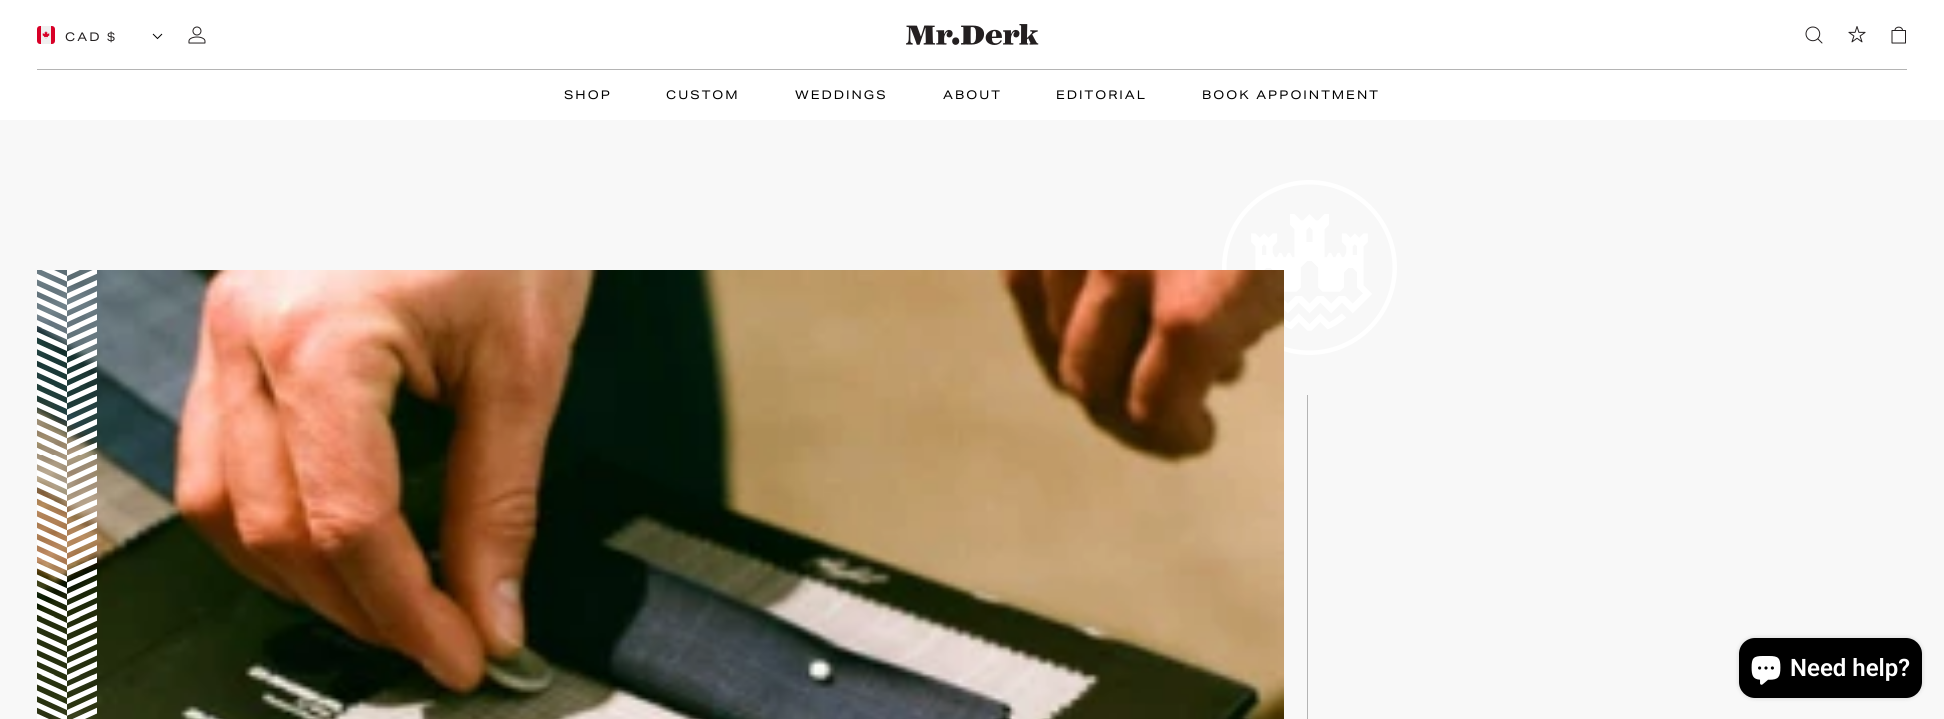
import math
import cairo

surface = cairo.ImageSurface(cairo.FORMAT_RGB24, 1944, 719)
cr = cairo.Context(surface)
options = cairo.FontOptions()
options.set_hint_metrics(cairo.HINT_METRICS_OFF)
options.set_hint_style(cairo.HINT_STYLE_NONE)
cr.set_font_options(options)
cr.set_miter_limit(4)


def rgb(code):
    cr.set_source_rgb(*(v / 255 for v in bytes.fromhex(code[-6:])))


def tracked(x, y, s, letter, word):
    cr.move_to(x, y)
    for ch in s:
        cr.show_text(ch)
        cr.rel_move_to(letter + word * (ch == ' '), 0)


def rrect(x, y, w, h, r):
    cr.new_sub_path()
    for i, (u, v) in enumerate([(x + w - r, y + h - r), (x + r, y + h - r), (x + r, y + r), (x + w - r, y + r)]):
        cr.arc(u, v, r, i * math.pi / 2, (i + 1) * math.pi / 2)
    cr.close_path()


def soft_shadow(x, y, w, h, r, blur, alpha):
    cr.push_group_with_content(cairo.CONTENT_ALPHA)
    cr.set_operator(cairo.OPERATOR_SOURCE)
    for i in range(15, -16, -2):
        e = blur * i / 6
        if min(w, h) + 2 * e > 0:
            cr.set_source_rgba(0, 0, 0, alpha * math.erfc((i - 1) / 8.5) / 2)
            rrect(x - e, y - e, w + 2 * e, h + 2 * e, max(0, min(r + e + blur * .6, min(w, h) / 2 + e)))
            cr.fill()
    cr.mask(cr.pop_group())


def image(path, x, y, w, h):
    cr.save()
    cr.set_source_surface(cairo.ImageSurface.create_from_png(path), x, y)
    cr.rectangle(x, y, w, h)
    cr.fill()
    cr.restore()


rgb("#f8f8f8")
cr.paint()
rgb("#ffffff")
cr.rectangle(0, 0, 1944, 120)
cr.fill()
rgb("#b4b4b4")
cr.rectangle(37, 69, 1870, 1)
cr.fill()
image("img/1.png", 37, 26, 18, 18)
cr.new_path()
cr.move_to(153, 34)
cr.line_to(157.5, 38.5)
cr.line_to(162, 34)
rgb("#000000")
cr.set_line_width(1)
cr.stroke()
image("img/2.png", 188, 26, 18, 18)
image("img/3.png", 906, 24, 133, 21)
image("img/4.png", 1805, 26, 18, 18)
image("img/5.png", 1848, 26, 18, 17)
cr.new_path()
cr.move_to(1895, 30.5)
cr.curve_to(1895, 26, 1902.5, 26, 1902.5, 30.5)
cr.move_to(1892, 30.5)
cr.line_to(1892, 43)
cr.line_to(1905.5, 43)
cr.line_to(1905.5, 30.5)
cr.close_path()
rgb("#231f20")
cr.set_line_cap(cairo.LINE_CAP_ROUND)
cr.set_line_join(cairo.LINE_JOIN_ROUND)
cr.stroke()
image("img/8.png", 1222, 180, 175, 175)
image("img/6.png", 37, 270, 1247, 449)
image("img/7.png", 37, 270, 60, 449)
rgb("#b4b4b4")
cr.rectangle(1307, 395, 1, 324)
cr.fill()
rgb("#000000")
soft_shadow(1739, 638, 183, 60, 16, 2.5, 0.15)
rgb("#000000")
rrect(1739, 638, 183, 60, 16)
cr.fill()
image("img/9.png", 1751, 656, 30, 29)
cr.select_font_face("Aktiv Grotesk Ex")
cr.set_font_size(12)
rgb("#231f20")
tracked(65, 41, "CAD $", 2, 0)
rgb("#000000")
for x, y, s in [
    (564, 99, "SHOP"),
    (666, 99, "CUSTOM"),
    (795, 99, "WEDDINGS"),
    (943, 99, "ABOUT"),
    (1056, 99, "EDITORIAL"),
    (1202, 99, "BOOK APPOINTMENT"),
]:
    tracked(x, y, s, 2, 0)
cr.select_font_face("Roboto SemiBold")
cr.set_font_size(24)
rgb("#ffffff")
cr.move_to(1790, 676)
cr.show_text("Need help?")
surface.write_to_png("page.png")
